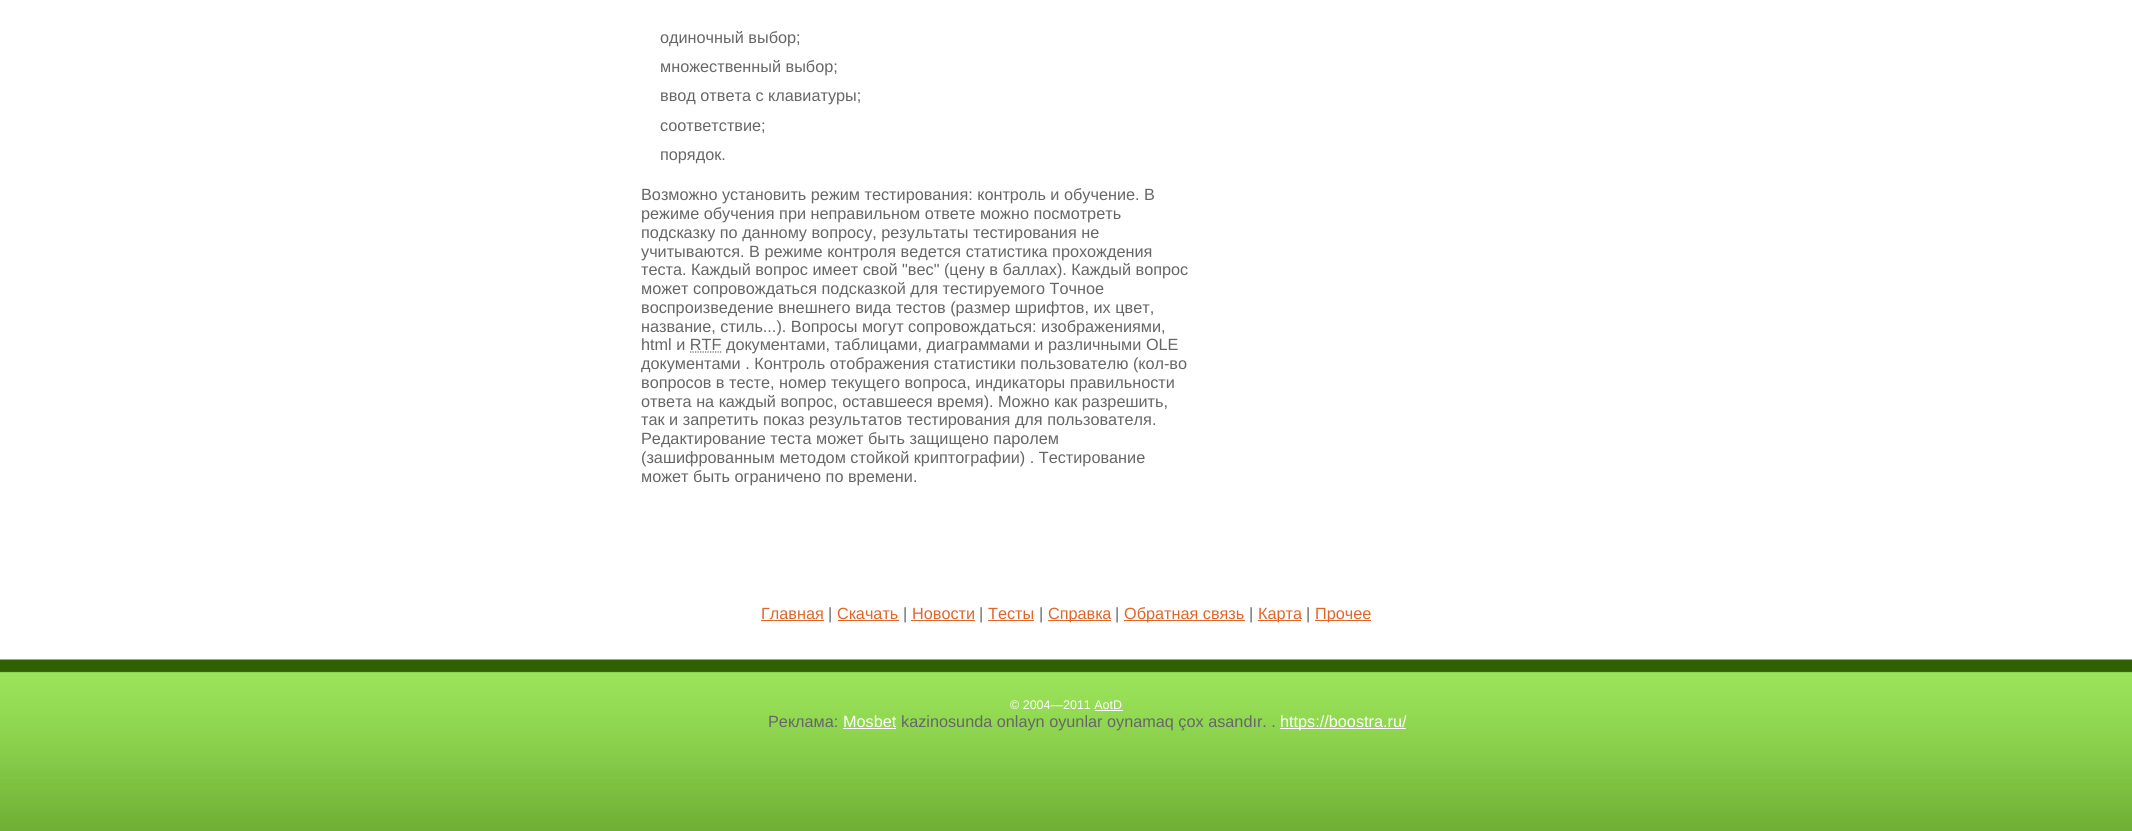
import math
import cairo

surface = cairo.ImageSurface(cairo.FORMAT_RGB24, 2132, 831)
cr = cairo.Context(surface)
options = cairo.FontOptions()
options.set_hint_metrics(cairo.HINT_METRICS_OFF)
options.set_hint_style(cairo.HINT_STYLE_NONE)
cr.set_font_options(options)
cr.set_miter_limit(4)


def rgb(code):
    cr.set_source_rgb(*(v / 255 for v in bytes.fromhex(code[-6:])))


def image(path, x, y, w, h):
    cr.save()
    cr.set_source_surface(cairo.ImageSurface.create_from_png(path), x, y)
    cr.rectangle(x, y, w, h)
    cr.fill()
    cr.restore()


rgb("#ffffff")
cr.paint()
cr.new_path()
cr.move_to(690, 352)
cr.line_to(721.5, 352)
rgb("#666666")
cr.set_line_width(1.2)
cr.set_dash([1.25, 1.25])
cr.stroke()
for x, y, w, h, color in [
    (761, 620, 63, 1, "#e06529"),
    (838, 620, 61, 1, "#e06529"),
    (911, 620, 64, 1, "#e06529"),
    (988, 620, 46, 1, "#e06529"),
    (1048, 620, 63, 1, "#e06529"),
    (1124, 620, 121, 1, "#e06529"),
    (1258, 620, 43, 1, "#e06529"),
    (1315, 620, 56, 1, "#e06529"),
]:
    rgb(color)
    cr.rectangle(x, y, w, h)
    cr.fill()
image("img/1.png", 0, 659, 2132, 172)
for x, y, w, h, color in [
    (1095, 710, 28, 1, "#ffffff"),
    (843, 728, 53, 1, "#ffffff"),
    (1280, 728, 126, 1, "#ffffff"),
]:
    rgb(color)
    cr.rectangle(x, y, w, h)
    cr.fill()
cr.select_font_face("Liberation Sans")
cr.set_font_size(16.25)
rgb("#666666")
for x, y, s in [
    (660, 43, "одиночный выбор;"),
    (660, 72, "множественный выбор;"),
    (660, 101, "ввод ответа с клавиатуры;"),
    (660, 131, "соответствие;"),
    (660, 160, "порядок."),
    (641, 200, "Возможно установить режим тестирования: контроль и обучение. В"),
    (641, 219, "режиме обучения при неправильном ответе можно посмотреть"),
    (641, 238, "подсказку по данному вопросу, результаты тестирования не"),
    (641, 257, "учитываются. В режиме контроля ведется статистика прохождения"),
    (641, 275, "теста. Каждый вопрос имеет свой \"вес\" (цену в баллах). Каждый вопрос"),
    (641, 294, "может сопровождаться подсказкой для тестируемого Точное"),
    (641, 313, "воспроизведение внешнего вида тестов (размер шрифтов, их цвет,"),
    (641, 332, "название, стиль...). Вопросы могут сопровождаться: изображениями,"),
    (641, 350, "html и RTF документами, таблицами, диаграммами и различными OLE"),
    (641, 369, "документами . Контроль отображения статистики пользователю (кол-во"),
    (641, 388, "вопросов в тесте, номер текущего вопроса, индикаторы правильности"),
    (641, 407, "ответа на каждый вопрос, оставшееся время). Можно как разрешить,"),
    (641, 425, "так и запретить показ результатов тестирования для пользователя."),
    (641, 444, "Редактирование теста может быть защищено паролем"),
    (641, 463, "(зашифрованным методом стойкой криптографии) . Тестирование"),
    (641, 482, "может быть ограничено по времени."),
]:
    cr.move_to(x, y)
    cr.show_text(s)
rgb("#e06529")
cr.move_to(761, 619)
cr.show_text("Главная")
rgb("#666666")
cr.move_to(828, 619)
cr.show_text("|")
rgb("#e06529")
cr.move_to(837, 619)
cr.show_text("Скачать")
rgb("#666666")
cr.move_to(903, 619)
cr.show_text("|")
rgb("#e06529")
cr.move_to(912, 619)
cr.show_text("Новости")
rgb("#666666")
cr.move_to(979, 619)
cr.show_text("|")
rgb("#e06529")
cr.move_to(988, 619)
cr.show_text("Тесты")
rgb("#666666")
cr.move_to(1039, 619)
cr.show_text("|")
rgb("#e06529")
cr.move_to(1048, 619)
cr.show_text("Справка")
rgb("#666666")
cr.move_to(1115, 619)
cr.show_text("|")
rgb("#e06529")
cr.move_to(1124, 619)
cr.show_text("Обратная связь")
rgb("#666666")
cr.move_to(1249, 619)
cr.show_text("|")
rgb("#e06529")
cr.move_to(1258, 619)
cr.show_text("Карта")
rgb("#666666")
cr.move_to(1306, 619)
cr.show_text("|")
rgb("#e06529")
cr.move_to(1315, 619)
cr.show_text("Прочее")
cr.set_font_size(12.5)
rgb("#ffffff")
cr.move_to(1010, 709)
cr.show_text("© 2004—2011 AotD")
cr.set_font_size(16.25)
rgb("#666666")
cr.move_to(768, 727)
cr.show_text("Реклама:")
rgb("#ffffff")
cr.move_to(843, 727)
cr.show_text("Mosbet")
rgb("#666666")
cr.move_to(901, 727)
cr.show_text("kazinosunda onlayn oyunlar oynamaq çox asandır. .")
rgb("#ffffff")
cr.move_to(1280, 727)
cr.show_text("https://boostra.ru/")
surface.write_to_png("page.png")
